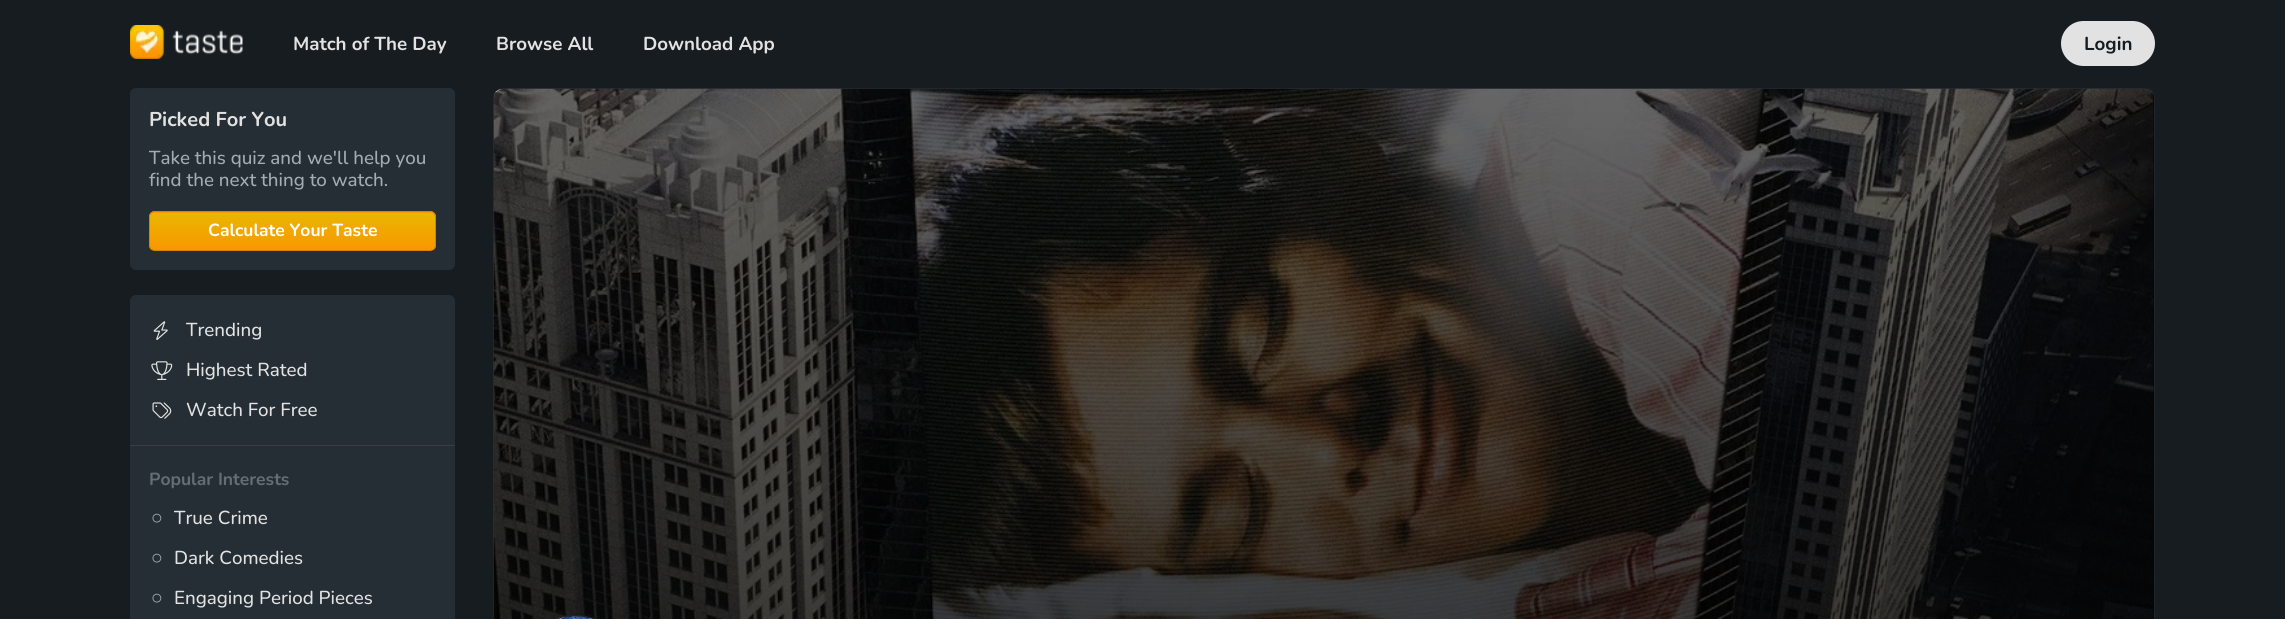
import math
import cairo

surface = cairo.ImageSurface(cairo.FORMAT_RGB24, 2285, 619)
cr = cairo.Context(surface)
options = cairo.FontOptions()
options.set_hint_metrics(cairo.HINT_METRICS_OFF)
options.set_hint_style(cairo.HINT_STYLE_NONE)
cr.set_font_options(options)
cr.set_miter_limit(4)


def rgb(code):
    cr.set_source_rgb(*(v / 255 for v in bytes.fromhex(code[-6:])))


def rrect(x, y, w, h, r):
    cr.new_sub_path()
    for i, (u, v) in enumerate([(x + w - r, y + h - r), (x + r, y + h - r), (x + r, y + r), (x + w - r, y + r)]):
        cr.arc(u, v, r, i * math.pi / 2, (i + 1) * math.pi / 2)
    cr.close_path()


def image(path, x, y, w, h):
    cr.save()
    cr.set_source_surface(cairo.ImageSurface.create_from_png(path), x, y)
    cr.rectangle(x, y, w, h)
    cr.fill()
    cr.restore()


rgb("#171c21")
cr.paint()
image("img/1.png", 130, 25, 113, 34)
rgb("#e2e2e2")
rrect(2061, 21, 94, 45, 22.5)
cr.fill()
rgb("#252e34")
rrect(130, 88, 325, 182, 6)
cr.fill()
cr.save()
rrect(149, 211, 287, 40, 6)
cr.clip()
gradient = cairo.LinearGradient(293, 175, 293, 213)
gradient.add_color_stop_rgba(0, 0.914, 0.714, 0, 1)
gradient.add_color_stop_rgba(1, 0.976, 0.592, 0, 1)
cr.set_source(gradient)
cr.rectangle(149, 211, 287, 2)
cr.fill()
gradient = cairo.LinearGradient(293, 213, 293, 250)
gradient.add_color_stop_rgba(0, 0.914, 0.714, 0, 1)
gradient.add_color_stop_rgba(1, 0.976, 0.592, 0, 1)
cr.set_source(gradient)
cr.rectangle(149, 213, 287, 37)
cr.fill()
cr.restore()
rrect(149.5, 211.5, 286, 39, 5.5)
rgb("#d88300")
cr.set_line_width(1)
cr.stroke()
rgb("#252e34")
rrect(130, 295, 325, 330, 6)
cr.fill()
image("img/2.png", 153, 321, 15, 19)
image("img/3.png", 151, 361, 22, 19)
image("img/4.png", 152, 402, 20, 17)
rgb("#383e43")
cr.rectangle(130, 445, 325, 1)
cr.fill()
image("img/5.png", 152, 513, 10, 10)
image("img/5.png", 152, 553, 10, 10)
image("img/5.png", 152, 593, 10, 10)
rgb("#000000")
rrect(493.5, 88.5, 1661, 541, 9.5)
cr.fill_preserve()
rgb("#21252a")
cr.stroke()
image("img/6.png", 493, 88, 1661, 531)
gradient = cairo.LinearGradient(1324, 89, 1324, 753)
gradient.add_color_stop_rgba(0, 0, 0, 0, 0.6)
gradient.add_color_stop_rgba(0.06, 0, 0, 0, 0.61)
gradient.add_color_stop_rgba(0.12, 0, 0, 0, 0.62)
gradient.add_color_stop_rgba(0.19, 0, 0, 0, 0.64)
gradient.add_color_stop_rgba(0.25, 0, 0, 0, 0.65)
gradient.add_color_stop_rgba(0.31, 0, 0, 0, 0.66)
gradient.add_color_stop_rgba(0.38, 0, 0, 0, 0.68)
gradient.add_color_stop_rgba(0.44, 0, 0, 0, 0.69)
gradient.add_color_stop_rgba(0.5, 0, 0, 0, 0.7)
gradient.add_color_stop_rgba(0.56, 0, 0, 0, 0.71)
gradient.add_color_stop_rgba(0.62, 0, 0, 0, 0.72)
gradient.add_color_stop_rgba(0.69, 0, 0, 0, 0.74)
gradient.add_color_stop_rgba(0.75, 0, 0, 0, 0.75)
gradient.add_color_stop_rgba(0.81, 0, 0, 0, 0.77)
gradient.add_color_stop_rgba(0.88, 0, 0, 0, 0.78)
gradient.add_color_stop_rgba(0.94, 0, 0, 0, 0.79)
gradient.add_color_stop_rgba(1, 0, 0, 0, 0.8)
cr.set_source(gradient)
rrect(494, 89, 1660, 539, 9)
cr.fill()
rgb("#21252a")
rrect(519.5, 615.5, 111, 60, 55.5)
cr.fill_preserve()
cr.stroke()
image("img/7.png", 557, 616, 36, 3)
cr.select_font_face("Nunito", cairo.FONT_SLANT_NORMAL, cairo.FONT_WEIGHT_BOLD)
cr.set_font_size(18.75)
rgb("#e2e2e2")
for x, y, s in [
    (293, 50, "Match of The Day"),
    (496, 50, "Browse All"),
    (643, 50, "Download App"),
]:
    cr.move_to(x, y)
    cr.show_text(s)
rgb("#171c21")
cr.move_to(2084, 50)
cr.show_text("Login")
cr.set_font_size(20)
rgb("#e2e2e2")
cr.move_to(149, 126)
cr.show_text("Picked For You")
cr.select_font_face("Nunito Medium")
cr.set_font_size(18.75)
rgb("#a2adb3")
cr.move_to(149, 164)
cr.show_text("Take this quiz and we'll help you")
cr.move_to(149, 186)
cr.show_text("find the next thing to watch.")
cr.select_font_face("Nunito", cairo.FONT_SLANT_NORMAL, cairo.FONT_WEIGHT_BOLD)
cr.set_font_size(17.5)
rgb("#ffffff")
cr.move_to(208, 236)
cr.show_text("Calculate Your Taste")
cr.select_font_face("Nunito Medium")
cr.set_font_size(18.75)
rgb("#e2e2e2")
for x, y, s in [
    (186, 336, "Trending"),
    (186, 376, "Highest Rated"),
    (186, 416, "Watch For Free"),
]:
    cr.move_to(x, y)
    cr.show_text(s)
cr.select_font_face("Nunito", cairo.FONT_SLANT_NORMAL, cairo.FONT_WEIGHT_BOLD)
cr.set_font_size(17.5)
rgb("#646e74")
cr.move_to(149, 485)
cr.show_text("Popular Interests")
cr.select_font_face("Nunito Medium")
cr.set_font_size(18.75)
rgb("#e2e2e2")
for x, y, s in [
    (174, 524, "True Crime"),
    (174, 564, "Dark Comedies"),
    (174, 604, "Engaging Period Pieces"),
]:
    cr.move_to(x, y)
    cr.show_text(s)
surface.write_to_png("page.png")
